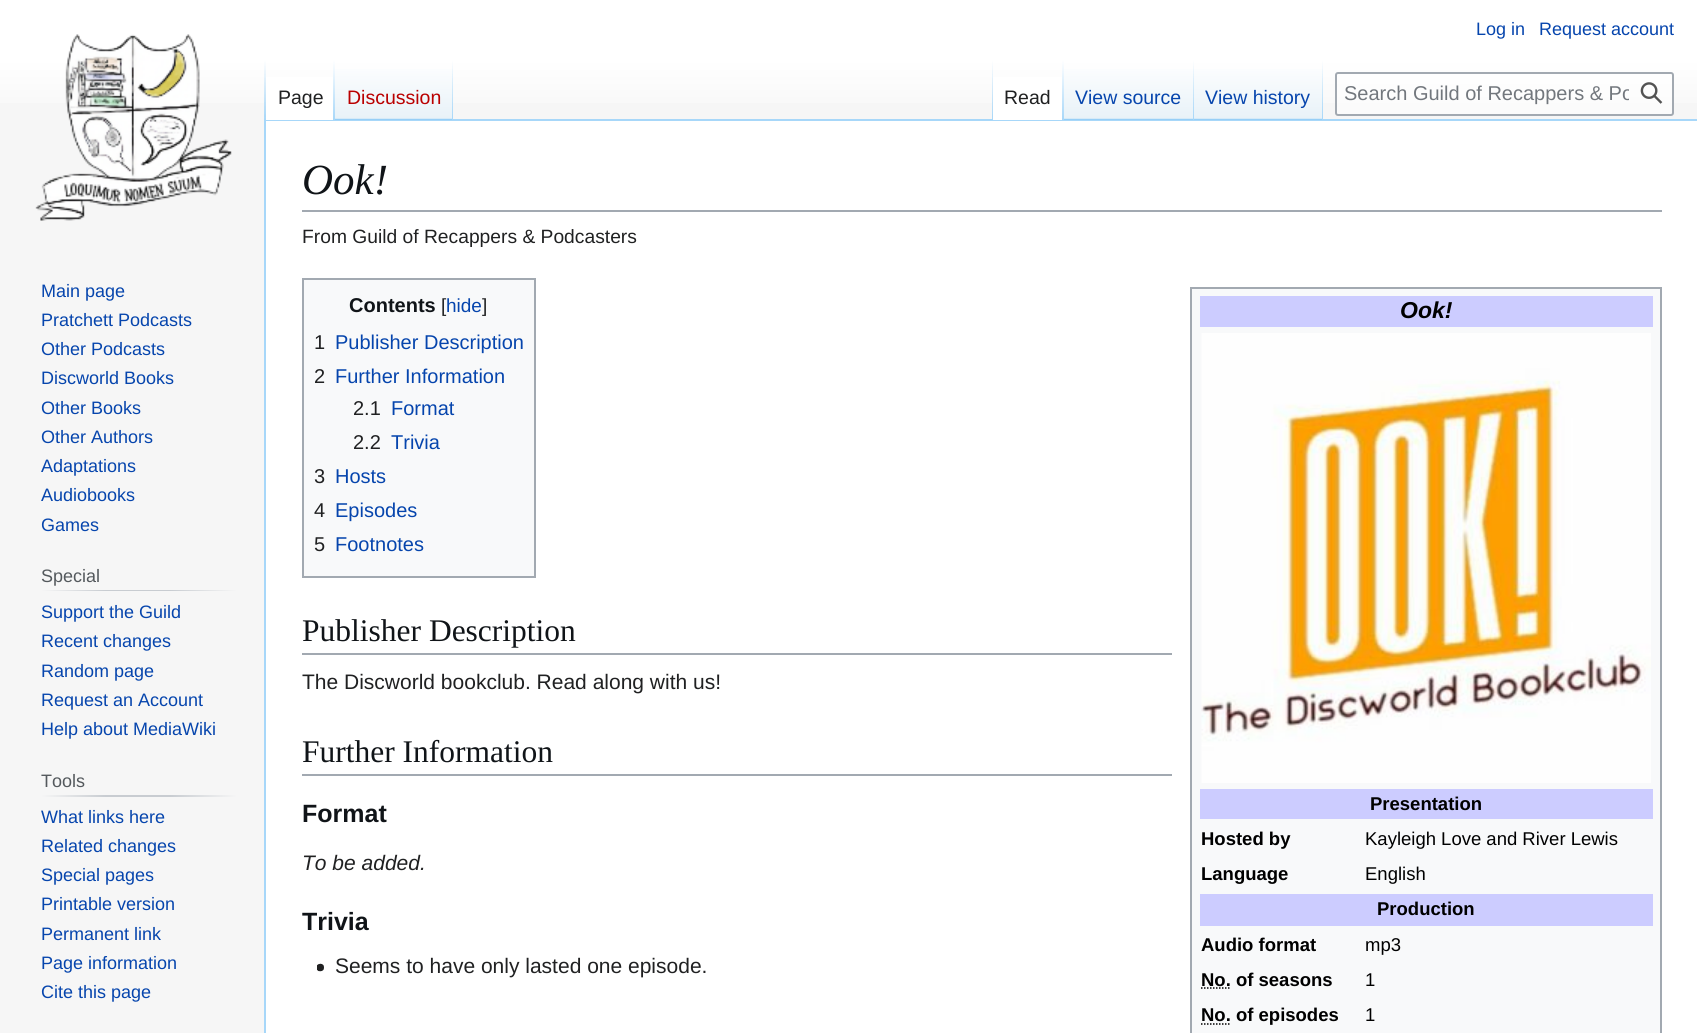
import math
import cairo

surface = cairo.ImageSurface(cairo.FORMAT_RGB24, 1697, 1033)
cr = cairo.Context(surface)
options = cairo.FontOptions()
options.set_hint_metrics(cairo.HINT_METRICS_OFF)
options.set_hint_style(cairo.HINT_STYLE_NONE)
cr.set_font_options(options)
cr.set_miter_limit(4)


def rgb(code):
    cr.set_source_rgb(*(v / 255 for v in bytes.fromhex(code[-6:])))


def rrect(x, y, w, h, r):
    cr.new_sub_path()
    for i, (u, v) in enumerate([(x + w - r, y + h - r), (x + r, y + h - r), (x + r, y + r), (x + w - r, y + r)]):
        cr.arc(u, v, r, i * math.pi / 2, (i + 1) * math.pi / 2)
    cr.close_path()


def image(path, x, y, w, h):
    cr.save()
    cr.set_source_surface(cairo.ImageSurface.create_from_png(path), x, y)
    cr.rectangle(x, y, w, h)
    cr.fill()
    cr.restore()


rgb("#f6f6f6")
cr.paint()
gradient = cairo.LinearGradient(849, 0, 849, 120)
gradient.add_color_stop_rgba(0.5, 1, 1, 1, 1)
gradient.add_color_stop_rgba(1, 0.965, 0.965, 0.965, 1)
cr.set_source(gradient)
cr.rectangle(0, 0, 1697, 103)
cr.fill()
rgb("#a7d7f9")
cr.rectangle(264, 119, 1433, 2)
cr.fill()
cr.rectangle(264, 119, 2, 914)
cr.fill()
gradient = cairo.LinearGradient(265, 60, 265, 120)
gradient.add_color_stop_rgba(0, 0.655, 0.843, 0.976, 0)
gradient.add_color_stop_rgba(1, 0.655, 0.843, 0.976, 1)
cr.set_source(gradient)
cr.rectangle(264, 60, 2, 60)
cr.fill()
rgb("#ffffff")
cr.rectangle(266, 77, 67, 43)
cr.fill()
gradient = cairo.LinearGradient(334, 60, 334, 120)
gradient.add_color_stop_rgba(0, 1, 1, 1, 1)
gradient.add_color_stop_rgba(1, 0.655, 0.843, 0.976, 1)
cr.set_source(gradient)
cr.rectangle(333, 60, 2, 60)
cr.fill()
gradient = cairo.LinearGradient(394, 120, 394, 60)
gradient.add_color_stop_rgba(0, 0.467, 0.757, 0.965, 1)
gradient.add_color_stop_rgba(0.03, 0.91, 0.949, 0.973, 1)
gradient.add_color_stop_rgba(1, 1, 1, 1, 1)
cr.set_source(gradient)
cr.rectangle(335, 69, 118, 51)
cr.fill()
gradient = cairo.LinearGradient(452, 60, 452, 120)
gradient.add_color_stop_rgba(0, 0.655, 0.843, 0.976, 0)
gradient.add_color_stop_rgba(1, 0.655, 0.843, 0.976, 1)
cr.set_source(gradient)
cr.rectangle(452, 60, 1, 60)
cr.fill()
gradient = cairo.LinearGradient(992, 60, 992, 120)
gradient.add_color_stop_rgba(0, 0.655, 0.843, 0.976, 0)
gradient.add_color_stop_rgba(1, 0.655, 0.843, 0.976, 1)
cr.set_source(gradient)
cr.rectangle(992, 60, 1, 60)
cr.fill()
rgb("#ffffff")
cr.rectangle(993, 77, 69, 43)
cr.fill()
gradient = cairo.LinearGradient(1063, 60, 1063, 120)
gradient.add_color_stop_rgba(0, 1, 1, 1, 1)
gradient.add_color_stop_rgba(1, 0.655, 0.843, 0.976, 1)
cr.set_source(gradient)
cr.rectangle(1062, 60, 2, 60)
cr.fill()
gradient = cairo.LinearGradient(1129, 120, 1129, 60)
gradient.add_color_stop_rgba(0, 0.467, 0.757, 0.965, 1)
gradient.add_color_stop_rgba(0.03, 0.91, 0.949, 0.973, 1)
gradient.add_color_stop_rgba(1, 1, 1, 1, 1)
cr.set_source(gradient)
cr.rectangle(1064, 69, 130, 51)
cr.fill()
gradient = cairo.LinearGradient(1193, 60, 1193, 120)
gradient.add_color_stop_rgba(0, 0.655, 0.843, 0.976, 0)
gradient.add_color_stop_rgba(1, 0.655, 0.843, 0.976, 1)
cr.set_source(gradient)
cr.rectangle(1193, 60, 1, 60)
cr.fill()
gradient = cairo.LinearGradient(1259, 120, 1259, 60)
gradient.add_color_stop_rgba(0, 0.467, 0.757, 0.965, 1)
gradient.add_color_stop_rgba(0.03, 0.91, 0.949, 0.973, 1)
gradient.add_color_stop_rgba(1, 1, 1, 1, 1)
cr.set_source(gradient)
cr.rectangle(1194, 69, 129, 51)
cr.fill()
gradient = cairo.LinearGradient(1322, 60, 1322, 120)
gradient.add_color_stop_rgba(0, 0.655, 0.843, 0.976, 0)
gradient.add_color_stop_rgba(1, 0.655, 0.843, 0.976, 1)
cr.set_source(gradient)
cr.rectangle(1322, 60, 1, 60)
cr.fill()
cr.set_source_rgba(1, 1, 1, 0.5)
rrect(1336, 73, 337, 42, 2)
cr.fill_preserve()
rgb("#a2a9b1")
cr.stroke()
image("img/1.png", 1640, 82, 23, 22)
image("img/2.png", 35, 34, 197, 187)
gradient = cairo.LinearGradient(41, 590, 237, 590)
gradient.add_color_stop_rgba(0, 0.965, 0.965, 0.965, 1)
gradient.add_color_stop_rgba(0.33, 0.784, 0.8, 0.82, 1)
gradient.add_color_stop_rgba(0.66, 0.784, 0.8, 0.82, 1)
gradient.add_color_stop_rgba(1, 0.965, 0.965, 0.965, 1)
cr.set_source(gradient)
cr.rectangle(41, 590, 196, 1)
cr.fill()
gradient = cairo.LinearGradient(41, 796, 237, 796)
gradient.add_color_stop_rgba(0, 0.965, 0.965, 0.965, 1)
gradient.add_color_stop_rgba(0.33, 0.784, 0.8, 0.82, 1)
gradient.add_color_stop_rgba(0.66, 0.784, 0.8, 0.82, 1)
gradient.add_color_stop_rgba(1, 0.965, 0.965, 0.965, 1)
cr.set_source(gradient)
cr.rectangle(41, 795, 196, 2)
cr.fill()
rgb("#ffffff")
cr.rectangle(266, 121, 1431, 912)
cr.fill()
rgb("#a2a9b1")
cr.rectangle(302, 210, 1360, 2)
cr.fill()
rgb("#f8f9fa")
cr.rectangle(303, 279, 232, 298)
cr.fill_preserve()
rgb("#a2a9b1")
cr.stroke()
rgb("#f8f9fa")
cr.rectangle(1191, 288, 470, 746)
cr.fill_preserve()
rgb("#a2a9b1")
cr.stroke()
rgb("#ccccff")
cr.rectangle(1200, 296, 453, 31)
cr.fill()
image("img/3.png", 1201, 333, 450, 450)
cr.rectangle(1200, 789, 453, 30)
cr.fill()
cr.rectangle(1200, 894, 453, 32)
cr.fill()
cr.new_path()
cr.move_to(1201, 988)
cr.line_to(1230.5, 988)
rgb("#000000")
cr.set_line_width(1.5)
cr.set_dash([1.5, 1.5])
cr.stroke()
cr.new_path()
cr.move_to(1201, 1024)
cr.line_to(1230.5, 1024)
cr.stroke()
rgb("#a2a9b1")
cr.rectangle(302, 653, 870, 2)
cr.fill()
cr.rectangle(302, 774, 870, 2)
cr.fill()
image("img/4.png", 317, 963, 7, 9)
cr.select_font_face("Liberation Sans")
cr.set_font_size(18)
rgb("#0645ad")
cr.move_to(1476, 35)
cr.show_text("Log in")
cr.move_to(1539, 35)
cr.show_text("Request account")
cr.set_font_size(19.5)
rgb("#202122")
cr.move_to(278, 104)
cr.show_text("Page")
rgb("#ba0000")
cr.move_to(347, 104)
cr.show_text("Discussion")
rgb("#202122")
cr.move_to(1004, 104)
cr.show_text("Read")
rgb("#0645ad")
cr.move_to(1075, 104)
cr.show_text("View source")
cr.move_to(1205, 104)
cr.show_text("View history")
cr.save()
cr.rectangle(1344, 83, 285, 22)
cr.clip()
cr.set_font_size(20)
rgb("#72777d")
cr.move_to(1344, 100)
cr.show_text("Search Guild of Recappers & Po")
cr.restore()
cr.set_font_size(18)
for x, y, s in [
    (41, 297, "Main page"),
    (41, 326, "Pratchett Podcasts"),
    (41, 355, "Other Podcasts"),
    (41, 384, "Discworld Books"),
    (41, 414, "Other Books"),
    (41, 443, "Other Authors"),
    (41, 472, "Adaptations"),
    (41, 501, "Audiobooks"),
    (41, 531, "Games"),
]:
    cr.move_to(x, y)
    cr.show_text(s)
rgb("#54595d")
cr.move_to(41, 582)
cr.show_text("Special")
rgb("#0645ad")
for x, y, s in [
    (41, 618, "Support the Guild"),
    (41, 647, "Recent changes"),
    (41, 677, "Random page"),
    (41, 706, "Request an Account"),
    (41, 735, "Help about MediaWiki"),
]:
    cr.move_to(x, y)
    cr.show_text(s)
rgb("#54595d")
cr.move_to(41, 787)
cr.show_text("Tools")
rgb("#0645ad")
for x, y, s in [
    (41, 823, "What links here"),
    (41, 852, "Related changes"),
    (41, 881, "Special pages"),
    (41, 910, "Printable version"),
    (41, 940, "Permanent link"),
    (41, 969, "Page information"),
    (41, 998, "Cite this page"),
]:
    cr.move_to(x, y)
    cr.show_text(s)
cr.select_font_face("Liberation Serif", cairo.FONT_SLANT_ITALIC)
cr.set_font_size(43)
rgb("#101418")
cr.move_to(302, 194)
cr.show_text("Ook!")
cr.select_font_face("Liberation Sans")
cr.set_font_size(19.25)
rgb("#202122")
cr.move_to(302, 243)
cr.show_text("From Guild of Recappers & Podcasters")
cr.select_font_face("Liberation Sans", cairo.FONT_SLANT_NORMAL, cairo.FONT_WEIGHT_BOLD)
cr.set_font_size(20)
rgb("#101418")
cr.move_to(349, 312)
cr.show_text("Contents")
cr.select_font_face("Liberation Sans")
cr.set_font_size(19)
rgb("#202122")
cr.move_to(441, 312)
cr.show_text("[")
rgb("#0645ad")
cr.move_to(446, 312)
cr.show_text("hide")
rgb("#202122")
cr.move_to(482, 312)
cr.show_text("]")
cr.set_font_size(20)
cr.move_to(314, 349)
cr.show_text("1")
rgb("#0645ad")
cr.move_to(335, 349)
cr.show_text("Publisher Description")
rgb("#202122")
cr.move_to(314, 383)
cr.show_text("2")
rgb("#0645ad")
cr.move_to(335, 383)
cr.show_text("Further Information")
rgb("#202122")
cr.move_to(353, 415)
cr.show_text("2.1")
rgb("#0645ad")
cr.move_to(391, 415)
cr.show_text("Format")
rgb("#202122")
cr.move_to(353, 449)
cr.show_text("2.2")
rgb("#0645ad")
cr.move_to(391, 449)
cr.show_text("Trivia")
rgb("#202122")
cr.move_to(314, 483)
cr.show_text("3")
rgb("#0645ad")
cr.move_to(335, 483)
cr.show_text("Hosts")
rgb("#202122")
cr.move_to(314, 517)
cr.show_text("4")
rgb("#0645ad")
cr.move_to(335, 517)
cr.show_text("Episodes")
rgb("#202122")
cr.move_to(314, 551)
cr.show_text("5")
rgb("#0645ad")
cr.move_to(335, 551)
cr.show_text("Footnotes")
cr.select_font_face("Liberation Sans", cairo.FONT_SLANT_ITALIC, cairo.FONT_WEIGHT_BOLD)
cr.set_font_size(23)
rgb("#000000")
cr.move_to(1400, 318)
cr.show_text("Ook!")
cr.select_font_face("Liberation Sans", cairo.FONT_SLANT_NORMAL, cairo.FONT_WEIGHT_BOLD)
cr.set_font_size(18.5)
cr.move_to(1370, 810)
cr.show_text("Presentation")
cr.move_to(1201, 845)
cr.show_text("Hosted by")
cr.select_font_face("Liberation Sans")
cr.move_to(1365, 845)
cr.show_text("Kayleigh Love and River Lewis")
cr.select_font_face("Liberation Sans", cairo.FONT_SLANT_NORMAL, cairo.FONT_WEIGHT_BOLD)
cr.move_to(1201, 880)
cr.show_text("Language")
cr.select_font_face("Liberation Sans")
cr.move_to(1365, 880)
cr.show_text("English")
cr.select_font_face("Liberation Sans", cairo.FONT_SLANT_NORMAL, cairo.FONT_WEIGHT_BOLD)
cr.move_to(1377, 915)
cr.show_text("Production")
cr.move_to(1201, 951)
cr.show_text("Audio format")
cr.select_font_face("Liberation Sans")
cr.move_to(1365, 951)
cr.show_text("mp3")
cr.select_font_face("Liberation Sans", cairo.FONT_SLANT_NORMAL, cairo.FONT_WEIGHT_BOLD)
cr.move_to(1201, 986)
cr.show_text("No. of seasons")
cr.select_font_face("Liberation Sans")
cr.move_to(1365, 986)
cr.show_text("1")
cr.select_font_face("Liberation Sans", cairo.FONT_SLANT_NORMAL, cairo.FONT_WEIGHT_BOLD)
cr.move_to(1201, 1021)
cr.show_text("No. of episodes")
cr.select_font_face("Liberation Sans")
cr.move_to(1365, 1021)
cr.show_text("1")
cr.select_font_face("Liberation Serif")
cr.set_font_size(31.5)
rgb("#101418")
cr.move_to(302, 641)
cr.show_text("Publisher Description")
cr.select_font_face("Liberation Sans")
cr.set_font_size(21)
rgb("#202122")
cr.move_to(302, 689)
cr.show_text("The Discworld bookclub. Read along with us!")
cr.select_font_face("Liberation Serif")
cr.set_font_size(31.5)
rgb("#101418")
cr.move_to(302, 762)
cr.show_text("Further Information")
cr.select_font_face("Liberation Sans", cairo.FONT_SLANT_NORMAL, cairo.FONT_WEIGHT_BOLD)
cr.set_font_size(25)
cr.move_to(302, 822)
cr.show_text("Format")
cr.select_font_face("Liberation Sans", cairo.FONT_SLANT_ITALIC)
cr.set_font_size(21)
rgb("#202122")
cr.move_to(302, 870)
cr.show_text("To be added.")
cr.select_font_face("Liberation Sans", cairo.FONT_SLANT_NORMAL, cairo.FONT_WEIGHT_BOLD)
cr.set_font_size(25)
rgb("#101418")
cr.move_to(302, 930)
cr.show_text("Trivia")
cr.select_font_face("Liberation Sans")
cr.set_font_size(21)
rgb("#202122")
cr.move_to(335, 973)
cr.show_text("Seems to have only lasted one episode.")
surface.write_to_png("page.png")
